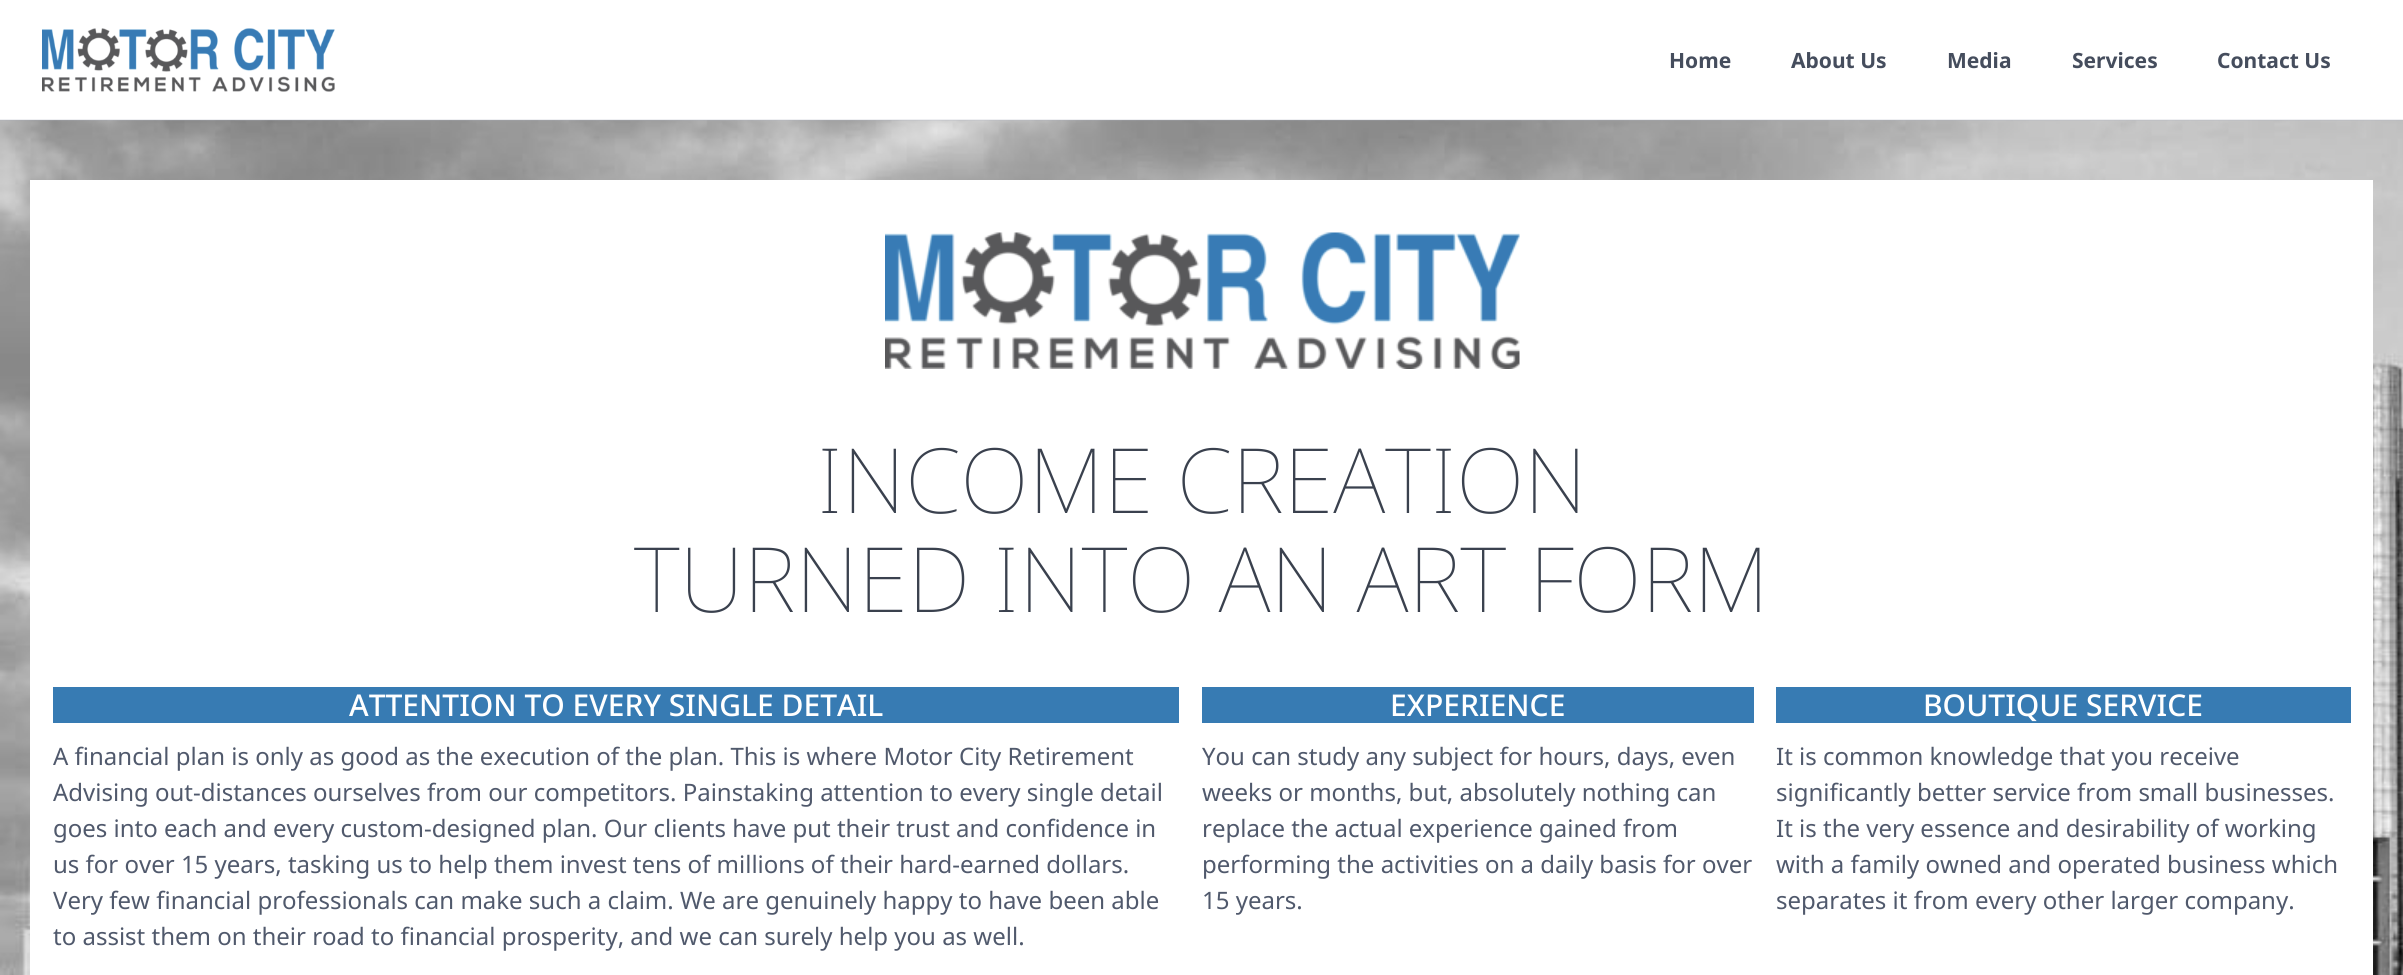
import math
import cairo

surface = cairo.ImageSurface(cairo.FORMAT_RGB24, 2403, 975)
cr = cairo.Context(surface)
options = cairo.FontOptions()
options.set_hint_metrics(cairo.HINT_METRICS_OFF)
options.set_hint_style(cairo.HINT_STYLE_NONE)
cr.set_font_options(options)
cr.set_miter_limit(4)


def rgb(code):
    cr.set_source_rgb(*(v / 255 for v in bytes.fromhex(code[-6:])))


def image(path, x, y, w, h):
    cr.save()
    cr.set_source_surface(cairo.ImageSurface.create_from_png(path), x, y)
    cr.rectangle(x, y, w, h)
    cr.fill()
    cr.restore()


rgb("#ffffff")
cr.paint()
image("img/2.png", 0, 120, 2403, 855)
cr.set_source_rgba(0.675, 0.702, 0.761, 0.2)
cr.rectangle(0, 119, 2403, 2)
cr.fill()
image("img/1.png", 42, 28, 293, 64)
rgb("#ffffff")
cr.rectangle(30, 180, 2343, 795)
cr.fill()
image("img/3.png", 885, 232, 635, 137)
for x, y, w, h, color in [
    (53, 687, 1126, 36, "#377bb3"),
    (1202, 687, 552, 36, "#377bb3"),
    (1776, 687, 575, 36, "#377bb3"),
]:
    rgb(color)
    cr.rectangle(x, y, w, h)
    cr.fill()
cr.select_font_face("Noto Sans", cairo.FONT_SLANT_NORMAL, cairo.FONT_WEIGHT_BOLD)
cr.set_font_size(21)
rgb("#454d5d")
for x, y, s in [
    (1669, 68, "Home"),
    (1791, 68, "About Us"),
    (1947, 68, "Media"),
    (2072, 68, "Services"),
    (2217, 68, "Contact Us"),
]:
    cr.move_to(x, y)
    cr.show_text(s)
cr.select_font_face("Noto Sans Thin")
cr.set_font_size(90)
rgb("#3a414e")
cr.move_to(817, 513)
cr.show_text("INCOME CREATION")
cr.move_to(634, 612)
cr.show_text("TURNED INTO AN ART FORM")
cr.select_font_face("Noto Sans Medium")
cr.set_font_size(30)
rgb("#ffffff")
cr.move_to(349, 716)
cr.show_text("ATTENTION TO EVERY SINGLE DETAIL")
cr.select_font_face("Noto Sans")
cr.set_font_size(24)
rgb("#50596c")
for x, y, s in [
    (53, 765, "A financial plan is only as good as the execution of the plan. This is where Motor City Retirement"),
    (53, 801, "Advising out-distances ourselves from our competitors. Painstaking attention to every single detail"),
    (53, 837, "goes into each and every custom-designed plan. Our clients have put their trust and confidence in"),
    (53, 873, "us for over 15 years, tasking us to help them invest tens of millions of their hard-earned dollars."),
    (53, 909, "Very few financial professionals can make such a claim. We are genuinely happy to have been able"),
    (53, 945, "to assist them on their road to financial prosperity, and we can surely help you as well."),
]:
    cr.move_to(x, y)
    cr.show_text(s)
cr.select_font_face("Noto Sans Medium")
cr.set_font_size(30)
rgb("#ffffff")
cr.move_to(1390, 716)
cr.show_text("EXPERIENCE")
cr.select_font_face("Noto Sans")
cr.set_font_size(24)
rgb("#50596c")
for x, y, s in [
    (1202, 765, "You can study any subject for hours, days, even"),
    (1202, 801, "weeks or months, but, absolutely nothing can"),
    (1202, 837, "replace the actual experience gained from"),
    (1202, 873, "performing the activities on a daily basis for over"),
    (1202, 909, "15 years."),
]:
    cr.move_to(x, y)
    cr.show_text(s)
cr.select_font_face("Noto Sans Medium")
cr.set_font_size(30)
rgb("#ffffff")
cr.move_to(1923, 716)
cr.show_text("BOUTIQUE SERVICE")
cr.select_font_face("Noto Sans")
cr.set_font_size(24)
rgb("#50596c")
for x, y, s in [
    (1776, 765, "It is common knowledge that you receive"),
    (1776, 801, "significantly better service from small businesses."),
    (1776, 837, "It is the very essence and desirability of working"),
    (1776, 873, "with a family owned and operated business which"),
    (1776, 909, "separates it from every other larger company."),
]:
    cr.move_to(x, y)
    cr.show_text(s)
surface.write_to_png("page.png")
